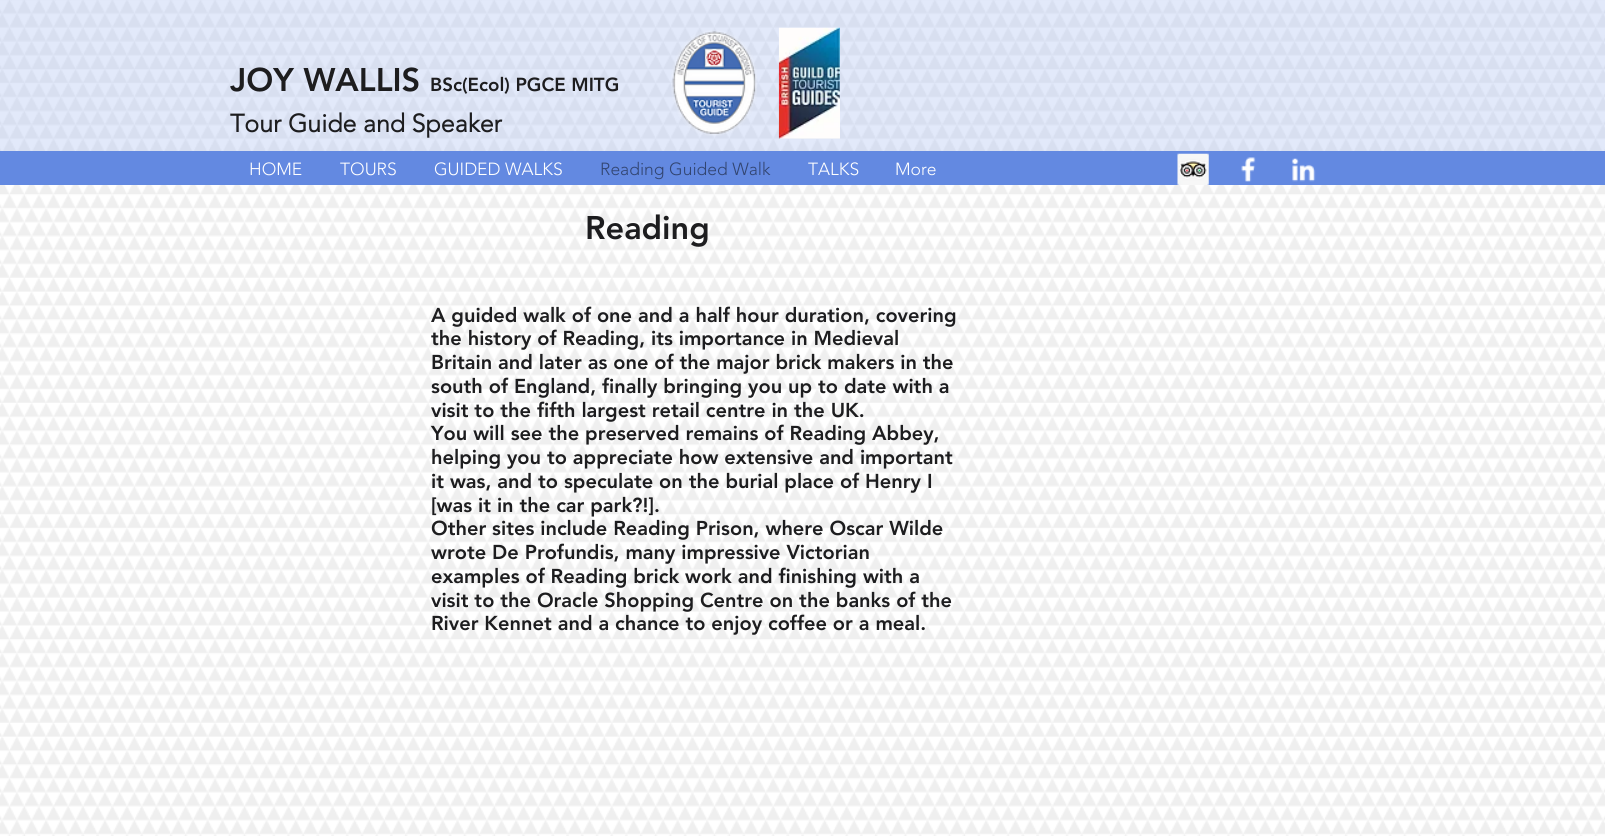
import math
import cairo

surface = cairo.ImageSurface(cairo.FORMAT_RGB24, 1605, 836)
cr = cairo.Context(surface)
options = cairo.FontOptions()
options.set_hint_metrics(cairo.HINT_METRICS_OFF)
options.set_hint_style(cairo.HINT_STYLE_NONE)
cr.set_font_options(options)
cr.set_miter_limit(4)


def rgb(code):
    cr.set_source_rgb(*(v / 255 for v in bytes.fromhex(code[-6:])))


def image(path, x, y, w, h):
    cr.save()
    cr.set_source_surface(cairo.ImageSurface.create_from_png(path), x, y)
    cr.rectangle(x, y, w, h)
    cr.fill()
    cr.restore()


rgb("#ffffff")
cr.paint()
image("img/1.png", 0, 0, 1605, 836)
cr.set_source_rgba(0.678, 0.757, 0.941, 0.35)
cr.rectangle(0, 0, 1605, 151)
cr.fill()
image("img/2.png", 671, 30, 86, 106)
image("img/3.png", 778, 27, 62, 112)
rgb("#6389e1")
cr.rectangle(0, 151, 1605, 34)
cr.fill()
image("img/4.png", 1177, 153, 32, 32)
image("img/5.png", 1241, 157, 15, 25)
image("img/6.png", 1291, 158, 25, 24)
cr.select_font_face("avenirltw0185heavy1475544 Black")
cr.set_font_size(32.5)
rgb("#1d1d1f")
cr.move_to(230, 91)
cr.show_text("JOY WALLIS")
cr.set_font_size(18.75)
cr.move_to(430, 91)
cr.show_text("BSc(Ecol) PGCE MITG")
cr.select_font_face("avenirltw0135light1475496", cairo.FONT_SLANT_NORMAL, cairo.FONT_WEIGHT_BOLD)
cr.set_font_size(25)
cr.move_to(230, 132)
cr.show_text("Tour Guide and Speaker")
cr.select_font_face("avenirltw0135light1475496 Light")
cr.set_font_size(17.5)
rgb("#ffffff")
for x, y, s in [
    (249, 175, "HOME"),
    (340, 175, "TOURS"),
    (434, 175, "GUIDED WALKS"),
]:
    cr.move_to(x, y)
    cr.show_text(s)
rgb("#324571")
cr.move_to(600, 175)
cr.show_text("Reading Guided Walk")
rgb("#ffffff")
cr.move_to(808, 175)
cr.show_text("TALKS")
cr.move_to(895, 175)
cr.show_text("More")
cr.select_font_face("avenirltw0185heavy1475544 Black")
cr.set_font_size(32.5)
rgb("#1d1d1f")
cr.move_to(585, 239)
cr.show_text("Reading")
cr.set_font_size(20)
for x, y, s in [
    (431, 322, "A guided walk of one and a half hour duration, covering"),
    (431, 345, "the history of Reading, its importance in Medieval"),
    (431, 369, "Britain and later as one of the major brick makers in the"),
    (431, 393, "south of England, finally bringing you up to date with a"),
    (431, 417, "visit to the fifth largest retail centre in the UK."),
    (431, 440, "You will see the preserved remains of Reading Abbey,"),
    (431, 464, "helping you to appreciate how extensive and important"),
    (431, 488, "it was, and to speculate on the burial place of Henry I"),
    (431, 512, "[was it in the car park?!]."),
    (431, 535, "Other sites include Reading Prison, where Oscar Wilde"),
    (431, 559, "wrote De Profundis, many impressive Victorian"),
    (431, 583, "examples of Reading brick work and finishing with a"),
    (431, 607, "visit to the Oracle Shopping Centre on the banks of the"),
    (431, 630, "River Kennet and a chance to enjoy coffee or a meal."),
]:
    cr.move_to(x, y)
    cr.show_text(s)
surface.write_to_png("page.png")
